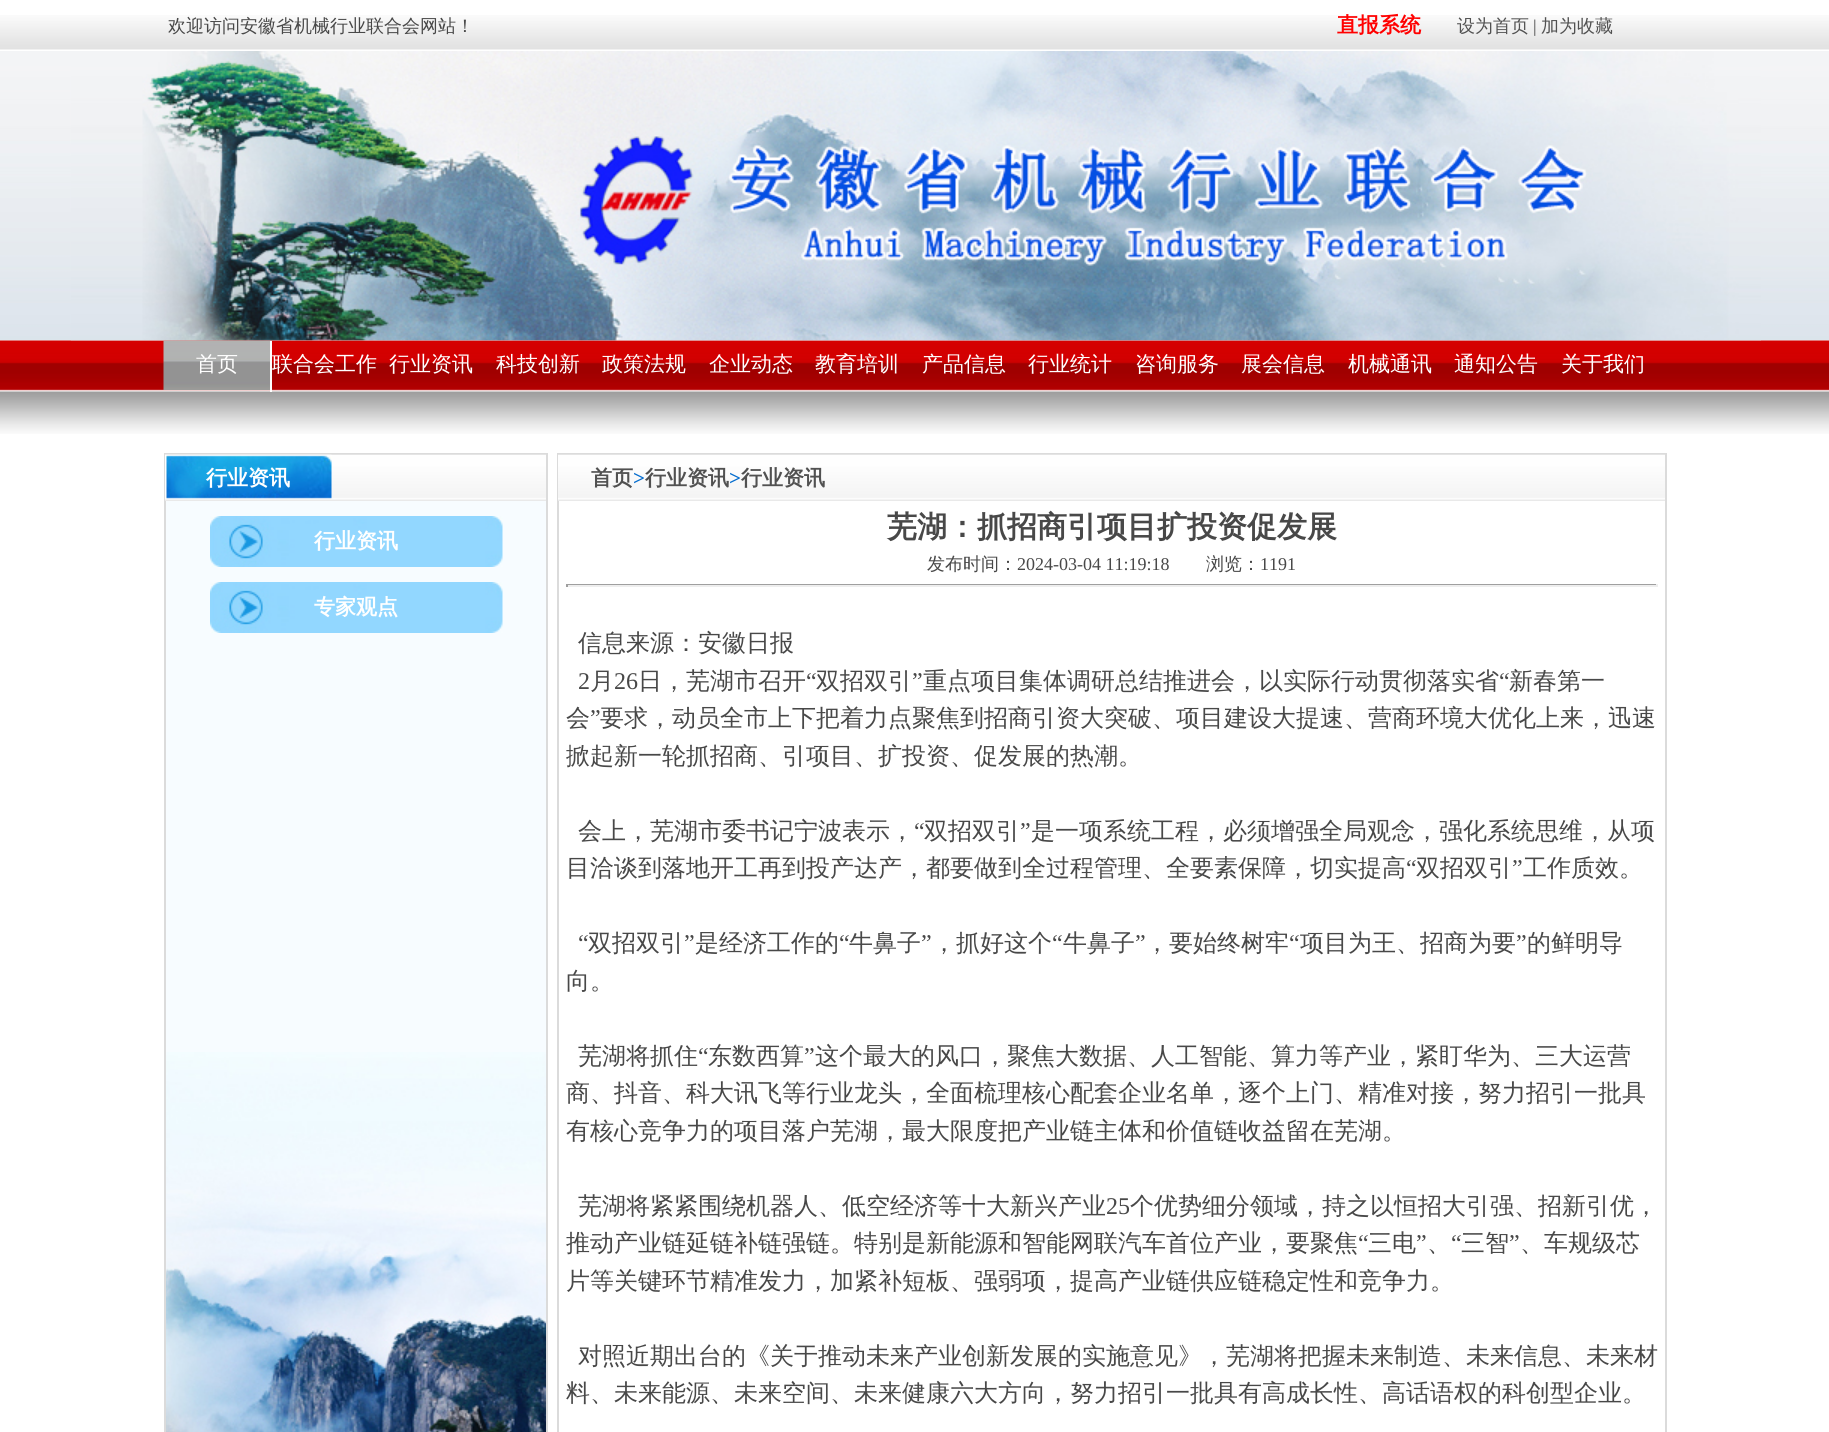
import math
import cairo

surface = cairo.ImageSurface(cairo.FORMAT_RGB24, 1829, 1432)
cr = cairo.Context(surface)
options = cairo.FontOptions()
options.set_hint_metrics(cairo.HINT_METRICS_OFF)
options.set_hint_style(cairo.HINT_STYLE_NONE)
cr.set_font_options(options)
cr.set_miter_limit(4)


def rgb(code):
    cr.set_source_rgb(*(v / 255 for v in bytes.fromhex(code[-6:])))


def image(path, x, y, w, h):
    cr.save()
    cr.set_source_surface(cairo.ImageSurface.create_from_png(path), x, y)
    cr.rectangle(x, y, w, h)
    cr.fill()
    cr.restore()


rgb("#ffffff")
cr.paint()
image("img/1.png", 0, 15, 1829, 35)
image("img/2.png", 0, 51, 1829, 290)
image("img/4.png", 0, 340, 1829, 94)
image("img/5.png", 163, 340, 109, 50)
image("img/3.png", 70, 51, 1691, 290)
rgb("#ffffff")
cr.rectangle(270, 341, 2, 51)
cr.fill()
rgb("#f7fcff")
cr.rectangle(166, 501, 380, 551)
cr.fill()
image("img/6.png", 166, 1052, 380, 380)
cr.rectangle(165, 454, 382, 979)
rgb("#dbdbdb")
cr.stroke()
image("img/7.png", 165, 454, 381, 47)
image("img/8.png", 165, 454, 167, 45)
image("img/9.png", 210, 516, 293, 51)
image("img/9.png", 210, 582, 293, 51)
cr.rectangle(558, 454, 1108, 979)
cr.stroke()
image("img/10.png", 558, 454, 1107, 47)
for x, y, w, h, color in [
    (566, 584, 1092, 1, "#9f9f9f"),
    (1656, 584, 2, 3, "#eeeeee"),
    (566, 585, 1092, 2, "#eeeeee"),
    (566, 584, 2, 3, "#9f9f9f"),
]:
    rgb(color)
    cr.rectangle(x, y, w, h)
    cr.fill()
cr.select_font_face("WenQuanYi Zen Hei Medium")
cr.set_font_size(18)
rgb("#484848")
cr.move_to(168, 32)
cr.show_text("欢迎访问安徽省机械行业联合会网站！")
cr.select_font_face("WenQuanYi Zen Hei", cairo.FONT_SLANT_NORMAL, cairo.FONT_WEIGHT_BOLD)
cr.set_font_size(21)
rgb("#ff0000")
cr.move_to(1337, 32)
cr.show_text("直报系统")
cr.select_font_face("WenQuanYi Zen Hei Medium")
cr.set_font_size(18)
rgb("#515151")
cr.move_to(1457, 32)
cr.show_text("设为首页")
cr.select_font_face("Liberation Serif")
rgb("#484848")
cr.move_to(1533, 32)
cr.show_text("|")
cr.select_font_face("WenQuanYi Zen Hei Medium")
rgb("#515151")
cr.move_to(1541, 32)
cr.show_text("加为收藏")
cr.set_font_size(21)
rgb("#ffffff")
for x, y, s in [
    (196, 371, "首页"),
    (272, 371, "联合会工作"),
    (389, 371, "行业资讯"),
    (496, 371, "科技创新"),
    (602, 371, "政策法规"),
    (709, 371, "企业动态"),
    (815, 371, "教育培训"),
    (922, 371, "产品信息"),
    (1028, 371, "行业统计"),
    (1135, 371, "咨询服务"),
    (1241, 371, "展会信息"),
    (1348, 371, "机械通讯"),
    (1454, 371, "通知公告"),
    (1561, 371, "关于我们"),
]:
    cr.move_to(x, y)
    cr.show_text(s)
cr.select_font_face("WenQuanYi Zen Hei", cairo.FONT_SLANT_NORMAL, cairo.FONT_WEIGHT_BOLD)
for x, y, s in [
    (206, 485, "行业资讯"),
    (314, 548, "行业资讯"),
    (314, 614, "专家观点"),
]:
    cr.move_to(x, y)
    cr.show_text(s)
rgb("#515151")
cr.move_to(591, 485)
cr.show_text("首页")
cr.select_font_face("Liberation Serif", cairo.FONT_SLANT_NORMAL, cairo.FONT_WEIGHT_BOLD)
rgb("#056dce")
cr.move_to(633, 485)
cr.show_text(">")
cr.select_font_face("WenQuanYi Zen Hei", cairo.FONT_SLANT_NORMAL, cairo.FONT_WEIGHT_BOLD)
rgb("#515151")
cr.move_to(645, 485)
cr.show_text("行业资讯")
cr.select_font_face("Liberation Serif", cairo.FONT_SLANT_NORMAL, cairo.FONT_WEIGHT_BOLD)
rgb("#056dce")
cr.move_to(729, 485)
cr.show_text(">")
cr.select_font_face("WenQuanYi Zen Hei", cairo.FONT_SLANT_NORMAL, cairo.FONT_WEIGHT_BOLD)
rgb("#515151")
cr.move_to(741, 485)
cr.show_text("行业资讯")
cr.set_font_size(30)
rgb("#484848")
cr.move_to(887, 537)
cr.show_text("芜湖：抓招商引项目扩投资促发展")
cr.select_font_face("WenQuanYi Zen Hei Medium")
cr.set_font_size(18)
cr.move_to(927, 570)
cr.show_text("发布时间：")
cr.select_font_face("Liberation Serif")
cr.move_to(1017, 570)
cr.show_text("2024-03-04 11:19:18")
cr.select_font_face("WenQuanYi Zen Hei Medium")
cr.move_to(1206, 570)
cr.show_text("浏览：")
cr.select_font_face("Liberation Serif")
cr.move_to(1260, 570)
cr.show_text("1191")
cr.select_font_face("WenQuanYi Zen Hei Medium")
cr.set_font_size(24)
cr.move_to(578, 651)
cr.show_text("信息来源：安徽日报")
cr.select_font_face("Liberation Serif")
cr.move_to(578, 689)
cr.show_text("2")
cr.select_font_face("WenQuanYi Zen Hei Medium")
cr.move_to(590, 689)
cr.show_text("月")
cr.select_font_face("Liberation Serif")
cr.move_to(614, 689)
cr.show_text("26")
cr.select_font_face("WenQuanYi Zen Hei Medium")
cr.move_to(638, 689)
cr.show_text("日，芜湖市召开")
cr.select_font_face("Liberation Serif")
cr.move_to(806, 689)
cr.show_text("“")
cr.select_font_face("WenQuanYi Zen Hei Medium")
cr.move_to(816, 689)
cr.show_text("双招双引")
cr.select_font_face("Liberation Serif")
cr.move_to(912, 689)
cr.show_text("”")
cr.select_font_face("WenQuanYi Zen Hei Medium")
cr.move_to(923, 689)
cr.show_text("重点项目集体调研总结推进会，以实际行动贯彻落实省")
cr.select_font_face("Liberation Serif")
cr.move_to(1499, 689)
cr.show_text("“")
cr.select_font_face("WenQuanYi Zen Hei Medium")
cr.move_to(1509, 689)
cr.show_text("新春第一")
cr.move_to(566, 726)
cr.show_text("会")
cr.select_font_face("Liberation Serif")
cr.move_to(590, 726)
cr.show_text("”")
cr.select_font_face("WenQuanYi Zen Hei Medium")
for x, y, s in [
    (600, 726, "要求，动员全市上下把着力点聚焦到招商引资大突破、项目建设大提速、营商环境大优化上来，迅速"),
    (566, 764, "掀起新一轮抓招商、引项目、扩投资、促发展的热潮。"),
    (578, 839, "会上，芜湖市委书记宁波表示，"),
]:
    cr.move_to(x, y)
    cr.show_text(s)
cr.select_font_face("Liberation Serif")
cr.move_to(914, 839)
cr.show_text("“")
cr.select_font_face("WenQuanYi Zen Hei Medium")
cr.move_to(924, 839)
cr.show_text("双招双引")
cr.select_font_face("Liberation Serif")
cr.move_to(1020, 839)
cr.show_text("”")
cr.select_font_face("WenQuanYi Zen Hei Medium")
cr.move_to(1031, 839)
cr.show_text("是一项系统工程，必须增强全局观念，强化系统思维，从项")
cr.move_to(566, 876)
cr.show_text("目洽谈到落地开工再到投产达产，都要做到全过程管理、全要素保障，切实提高")
cr.select_font_face("Liberation Serif")
cr.move_to(1406, 876)
cr.show_text("“")
cr.select_font_face("WenQuanYi Zen Hei Medium")
cr.move_to(1416, 876)
cr.show_text("双招双引")
cr.select_font_face("Liberation Serif")
cr.move_to(1512, 876)
cr.show_text("”")
cr.select_font_face("WenQuanYi Zen Hei Medium")
cr.move_to(1523, 876)
cr.show_text("工作质效。")
cr.select_font_face("Liberation Serif")
cr.move_to(578, 951)
cr.show_text("“")
cr.select_font_face("WenQuanYi Zen Hei Medium")
cr.move_to(588, 951)
cr.show_text("双招双引")
cr.select_font_face("Liberation Serif")
cr.move_to(684, 951)
cr.show_text("”")
cr.select_font_face("WenQuanYi Zen Hei Medium")
cr.move_to(695, 951)
cr.show_text("是经济工作的")
cr.select_font_face("Liberation Serif")
cr.move_to(839, 951)
cr.show_text("“")
cr.select_font_face("WenQuanYi Zen Hei Medium")
cr.move_to(849, 951)
cr.show_text("牛鼻子")
cr.select_font_face("Liberation Serif")
cr.move_to(921, 951)
cr.show_text("”")
cr.select_font_face("WenQuanYi Zen Hei Medium")
cr.move_to(932, 951)
cr.show_text("，抓好这个")
cr.select_font_face("Liberation Serif")
cr.move_to(1052, 951)
cr.show_text("“")
cr.select_font_face("WenQuanYi Zen Hei Medium")
cr.move_to(1063, 951)
cr.show_text("牛鼻子")
cr.select_font_face("Liberation Serif")
cr.move_to(1135, 951)
cr.show_text("”")
cr.select_font_face("WenQuanYi Zen Hei Medium")
cr.move_to(1145, 951)
cr.show_text("，要始终树牢")
cr.select_font_face("Liberation Serif")
cr.move_to(1289, 951)
cr.show_text("“")
cr.select_font_face("WenQuanYi Zen Hei Medium")
cr.move_to(1300, 951)
cr.show_text("项目为王、招商为要")
cr.select_font_face("Liberation Serif")
cr.move_to(1516, 951)
cr.show_text("”")
cr.select_font_face("WenQuanYi Zen Hei Medium")
for x, y, s in [
    (1527, 951, "的鲜明导"),
    (566, 989, "向。"),
    (578, 1064, "芜湖将抓住"),
]:
    cr.move_to(x, y)
    cr.show_text(s)
cr.select_font_face("Liberation Serif")
cr.move_to(698, 1064)
cr.show_text("“")
cr.select_font_face("WenQuanYi Zen Hei Medium")
cr.move_to(708, 1064)
cr.show_text("东数西算")
cr.select_font_face("Liberation Serif")
cr.move_to(804, 1064)
cr.show_text("”")
cr.select_font_face("WenQuanYi Zen Hei Medium")
for x, y, s in [
    (815, 1064, "这个最大的风口，聚焦大数据、人工智能、算力等产业，紧盯华为、三大运营"),
    (566, 1101, "商、抖音、科大讯飞等行业龙头，全面梳理核心配套企业名单，逐个上门、精准对接，努力招引一批具"),
    (566, 1139, "有核心竞争力的项目落户芜湖，最大限度把产业链主体和价值链收益留在芜湖。"),
    (578, 1214, "芜湖将紧紧围绕机器人、低空经济等十大新兴产业"),
]:
    cr.move_to(x, y)
    cr.show_text(s)
cr.select_font_face("Liberation Serif")
cr.move_to(1106, 1214)
cr.show_text("25")
cr.select_font_face("WenQuanYi Zen Hei Medium")
cr.move_to(1130, 1214)
cr.show_text("个优势细分领域，持之以恒招大引强、招新引优，")
cr.move_to(566, 1251)
cr.show_text("推动产业链延链补链强链。特别是新能源和智能网联汽车首位产业，要聚焦")
cr.select_font_face("Liberation Serif")
cr.move_to(1358, 1251)
cr.show_text("“")
cr.select_font_face("WenQuanYi Zen Hei Medium")
cr.move_to(1368, 1251)
cr.show_text("三电")
cr.select_font_face("Liberation Serif")
cr.move_to(1416, 1251)
cr.show_text("”")
cr.move_to(1451, 1251)
cr.show_text("“")
cr.select_font_face("WenQuanYi Zen Hei Medium")
cr.move_to(1461, 1251)
cr.show_text("三智")
cr.select_font_face("Liberation Serif")
cr.move_to(1509, 1251)
cr.show_text("”")
cr.select_font_face("WenQuanYi Zen Hei Medium")
for x, y, s in [
    (1520, 1251, "、车规级芯"),
    (1427, 1251, "、"),
    (566, 1289, "片等关键环节精准发力，加紧补短板、强弱项，提高产业链供应链稳定性和竞争力。"),
    (578, 1364, "对照近期出台的《关于推动未来产业创新发展的实施意见》，芜湖将把握未来制造、未来信息、未来材"),
    (566, 1401, "料、未来能源、未来空间、未来健康六大方向，努力招引一批具有高成长性、高话语权的科创型企业。"),
]:
    cr.move_to(x, y)
    cr.show_text(s)
surface.write_to_png("page.png")
